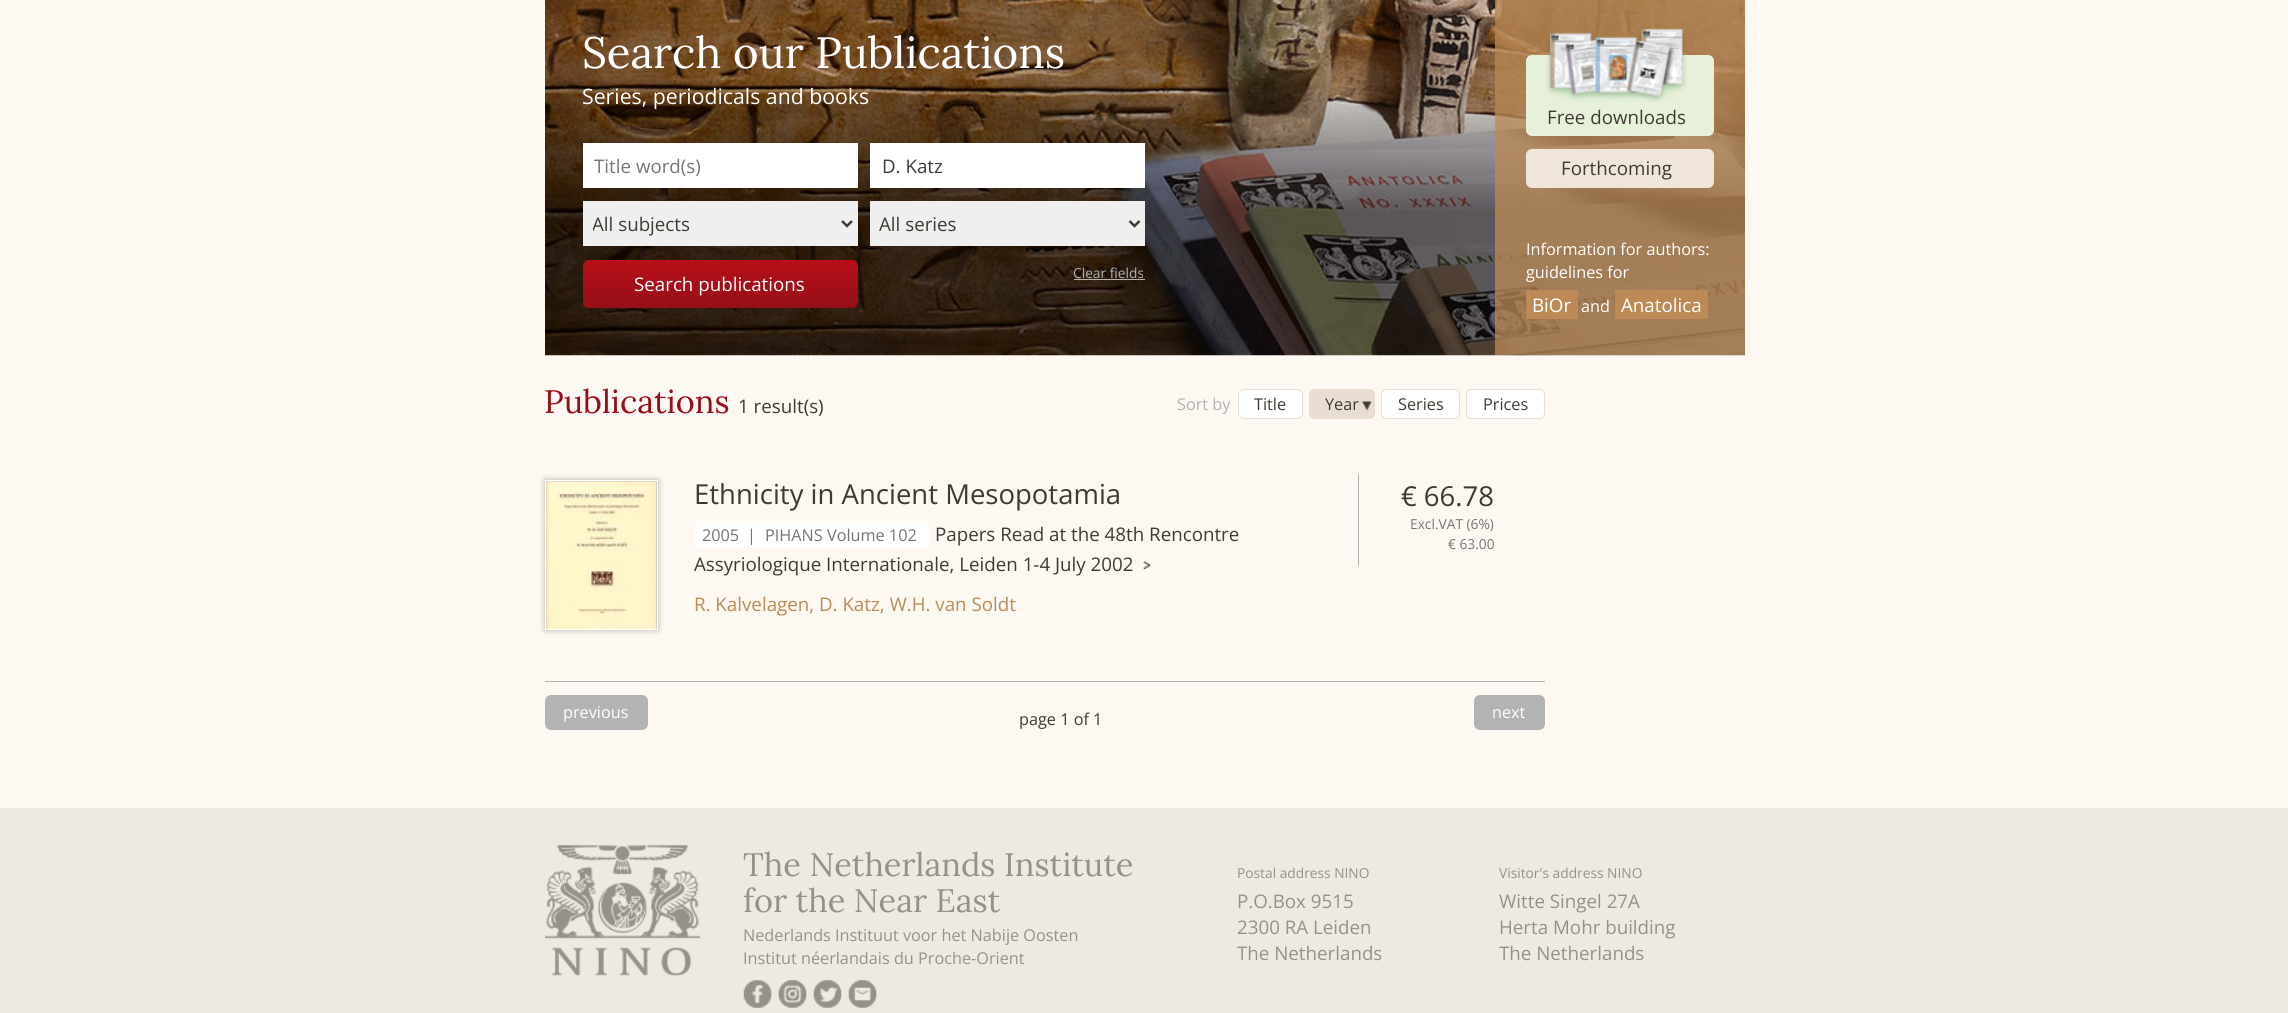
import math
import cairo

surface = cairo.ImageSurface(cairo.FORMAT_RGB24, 2288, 1013)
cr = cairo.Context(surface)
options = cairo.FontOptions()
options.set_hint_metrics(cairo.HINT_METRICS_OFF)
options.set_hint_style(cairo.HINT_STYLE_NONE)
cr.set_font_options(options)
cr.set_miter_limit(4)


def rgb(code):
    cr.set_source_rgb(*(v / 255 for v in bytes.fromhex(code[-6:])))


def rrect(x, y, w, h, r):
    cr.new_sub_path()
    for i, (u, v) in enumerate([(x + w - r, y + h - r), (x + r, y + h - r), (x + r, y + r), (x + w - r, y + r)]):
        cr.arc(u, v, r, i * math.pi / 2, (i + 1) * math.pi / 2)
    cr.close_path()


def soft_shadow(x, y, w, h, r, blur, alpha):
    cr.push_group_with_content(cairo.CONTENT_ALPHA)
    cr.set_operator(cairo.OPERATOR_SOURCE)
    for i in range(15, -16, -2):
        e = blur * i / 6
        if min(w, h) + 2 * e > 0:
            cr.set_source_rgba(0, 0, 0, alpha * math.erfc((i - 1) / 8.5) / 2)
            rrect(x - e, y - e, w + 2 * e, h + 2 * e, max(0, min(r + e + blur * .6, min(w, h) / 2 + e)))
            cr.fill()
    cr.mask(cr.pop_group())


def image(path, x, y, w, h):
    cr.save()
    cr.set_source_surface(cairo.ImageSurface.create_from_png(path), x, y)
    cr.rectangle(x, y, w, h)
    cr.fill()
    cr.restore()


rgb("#fdf8f2")
cr.paint()
image("img/1.png", 545, 0, 1200, 356)
for x, y, w, h, color in [
    (583, 143, 275, 45, "#ffffff"),
    (870, 143, 275, 45, "#ffffff"),
    (583, 201, 275, 45, "#efefef"),
]:
    rgb(color)
    cr.rectangle(x, y, w, h)
    cr.fill()
cr.new_path()
cr.move_to(842, 221)
cr.line_to(847, 226)
cr.line_to(852, 221)
rgb("#403a34")
cr.set_line_width(2.5)
cr.stroke()
rgb("#efefef")
cr.rectangle(870, 201, 275, 45)
cr.fill()
cr.new_path()
cr.move_to(1129.5, 221)
cr.line_to(1134.5, 226)
cr.line_to(1139.5, 221)
rgb("#403a34")
cr.stroke()
rgb("#b3b3b3")
cr.rectangle(1074, 279, 71, 1)
cr.fill()
gradient = cairo.LinearGradient(720, 260, 720, 308)
gradient.add_color_stop_rgba(0, 0.722, 0.059, 0.094, 1)
gradient.add_color_stop_rgba(1, 0.584, 0.059, 0.094, 1)
cr.set_source(gradient)
rrect(583, 260, 275, 48, 6)
cr.fill()
cr.set_source_rgba(0.733, 0.541, 0.337, 0.75)
cr.rectangle(1495, 0, 250, 355)
cr.fill()
rgb("#e7f0d9")
rrect(1526, 55, 188, 81, 6)
cr.fill()
image("img/2.png", 1546, 28, 141, 74)
rgb("#f0e5d9")
rrect(1526, 149, 188, 39, 6)
cr.fill()
rgb("#bb8a56")
cr.rectangle(1526, 290, 52, 29)
cr.fill()
cr.rectangle(1615, 290, 93, 29)
cr.fill()
rgb("#ffffff")
rrect(1238.5, 389.5, 64, 29, 5.5)
cr.fill_preserve()
rgb("#e7ddd0")
cr.set_line_width(1)
cr.stroke()
rrect(1309, 389, 66, 30, 6)
cr.fill()
image("img/3.png", 1362, 401, 10, 10)
rrect(1309.5, 389.5, 65, 29, 5.5)
cr.stroke()
rgb("#ffffff")
rrect(1381.5, 389.5, 78, 29, 5.5)
cr.fill_preserve()
rgb("#e7ddd0")
cr.stroke()
rgb("#ffffff")
rrect(1466.5, 389.5, 78, 29, 5.5)
cr.fill_preserve()
rgb("#e7ddd0")
cr.stroke()
rgb("#000000")
soft_shadow(545, 480, 113, 150, 0, 3, 0.3)
cr.rectangle(545.5, 480.5, 112, 149)
rgb("#ffffff")
cr.stroke()
image("img/4.png", 546, 481, 111, 148)
cr.rectangle(695, 523, 234, 25)
cr.fill()
image("img/5.png", 1143, 561, 8, 8)
rgb("#b3b3b3")
cr.rectangle(1358, 474, 1, 92)
cr.fill()
cr.rectangle(545, 681, 1000, 1)
cr.fill()
rrect(545, 695, 103, 35, 6)
cr.fill()
rrect(1474, 695, 71, 35, 6)
cr.fill()
rgb("#eee9e3")
cr.rectangle(0, 808, 2288, 205)
cr.fill()
image("img/6.png", 545, 845, 155, 131)
image("img/7.png", 743, 980, 29, 28)
image("img/8.png", 778, 980, 29, 28)
image("img/9.png", 813, 980, 29, 28)
image("img/10.png", 848, 980, 29, 28)
cr.select_font_face("Lora")
cr.set_font_size(43.75)
rgb("#ffffff")
cr.move_to(582, 68)
cr.show_text("Search our Publications")
cr.select_font_face("Open Sans")
cr.set_font_size(21.25)
cr.move_to(582, 104)
cr.show_text("Series, periodicals and books")
cr.set_font_size(18.75)
rgb("#757575")
cr.move_to(594, 173)
cr.show_text("Title word(s)")
rgb("#403a34")
cr.move_to(882, 173)
cr.show_text("D. Katz")
cr.save()
cr.rectangle(593, 210, 240, 28)
cr.clip()
cr.move_to(592, 231)
cr.show_text("All subjects")
cr.restore()
cr.move_to(879, 231)
cr.show_text("All series")
cr.set_font_size(13.75)
rgb("#b3b3b3")
cr.move_to(1073, 278)
cr.show_text("Clear fields")
cr.set_font_size(18.75)
rgb("#ffffff")
cr.move_to(634, 291)
cr.show_text("Search publications")
rgb("#403a34")
cr.move_to(1547, 124)
cr.show_text("Free downloads")
cr.move_to(1561, 175)
cr.show_text("Forthcoming")
cr.set_font_size(16.25)
rgb("#ffffff")
cr.move_to(1526, 255)
cr.show_text("Information for authors:")
cr.move_to(1526, 278)
cr.show_text("guidelines for")
cr.set_font_size(18.75)
cr.move_to(1532, 312)
cr.show_text("BiOr")
cr.set_font_size(16.25)
cr.move_to(1581, 312)
cr.show_text("and")
cr.set_font_size(18.75)
cr.move_to(1621, 312)
cr.show_text("Anatolica")
cr.select_font_face("Lora")
cr.set_font_size(32.5)
rgb("#950f18")
cr.move_to(544, 413)
cr.show_text("Publications")
cr.select_font_face("Open Sans")
cr.set_font_size(18.75)
rgb("#403a34")
cr.move_to(738, 413)
cr.show_text("1 result(s)")
cr.set_font_size(16.25)
rgb("#b3b3b3")
cr.move_to(1177, 410)
cr.show_text("Sort by")
rgb("#403a34")
for x, y, s in [
    (1254, 410, "Title"),
    (1325, 410, "Year"),
    (1398, 410, "Series"),
    (1483, 410, "Prices"),
]:
    cr.move_to(x, y)
    cr.show_text(s)
cr.set_font_size(27.5)
cr.move_to(694, 504)
cr.show_text("Ethnicity in Ancient Mesopotamia")
cr.set_font_size(16.25)
rgb("#757575")
for x, y, s in [
    (702, 541, "2005"),
    (747, 541, "|"),
    (765, 541, "PIHANS Volume 102"),
]:
    cr.move_to(x, y)
    cr.show_text(s)
cr.set_font_size(18.75)
rgb("#403a34")
cr.move_to(935, 541)
cr.show_text("Papers Read at the 48th Rencontre")
cr.move_to(694, 571)
cr.show_text("Assyriologique Internationale, Leiden 1-4 July 2002")
rgb("#bb8a56")
cr.move_to(694, 611)
cr.show_text("R. Kalvelagen, D. Katz, W.H. van Soldt")
cr.set_font_size(27.5)
rgb("#403a34")
cr.move_to(1401, 506)
cr.show_text("€ 66.78")
cr.set_font_size(13.75)
rgb("#757575")
cr.move_to(1410, 529)
cr.show_text("Excl.VAT (6%)")
cr.move_to(1448, 549)
cr.show_text("€ 63.00")
cr.set_font_size(16.25)
rgb("#ffffff")
cr.move_to(563, 718)
cr.show_text("previous")
rgb("#403a34")
cr.move_to(1019, 725)
cr.show_text("page 1 of 1")
rgb("#ffffff")
cr.move_to(1492, 718)
cr.show_text("next")
cr.select_font_face("Lora")
cr.set_font_size(32.5)
rgb("#97918b")
cr.move_to(743, 876)
cr.show_text("The Netherlands Institute")
cr.move_to(743, 912)
cr.show_text("for the Near East")
cr.select_font_face("Open Sans")
cr.set_font_size(16.25)
cr.move_to(743, 941)
cr.show_text("Nederlands Instituut voor het Nabije Oosten")
cr.move_to(743, 964)
cr.show_text("Institut néerlandais du Proche-Orient")
cr.set_font_size(13.75)
cr.move_to(1237, 878)
cr.show_text("Postal address NINO")
cr.set_font_size(18.75)
for x, y, s in [
    (1237, 908, "P.O.Box 9515"),
    (1237, 934, "2300 RA Leiden"),
    (1237, 960, "The Netherlands"),
]:
    cr.move_to(x, y)
    cr.show_text(s)
cr.set_font_size(13.75)
cr.move_to(1499, 878)
cr.show_text("Visitor's address NINO")
cr.set_font_size(18.75)
for x, y, s in [
    (1499, 908, "Witte Singel 27A"),
    (1499, 934, "Herta Mohr building"),
    (1499, 960, "The Netherlands"),
]:
    cr.move_to(x, y)
    cr.show_text(s)
surface.write_to_png("page.png")
